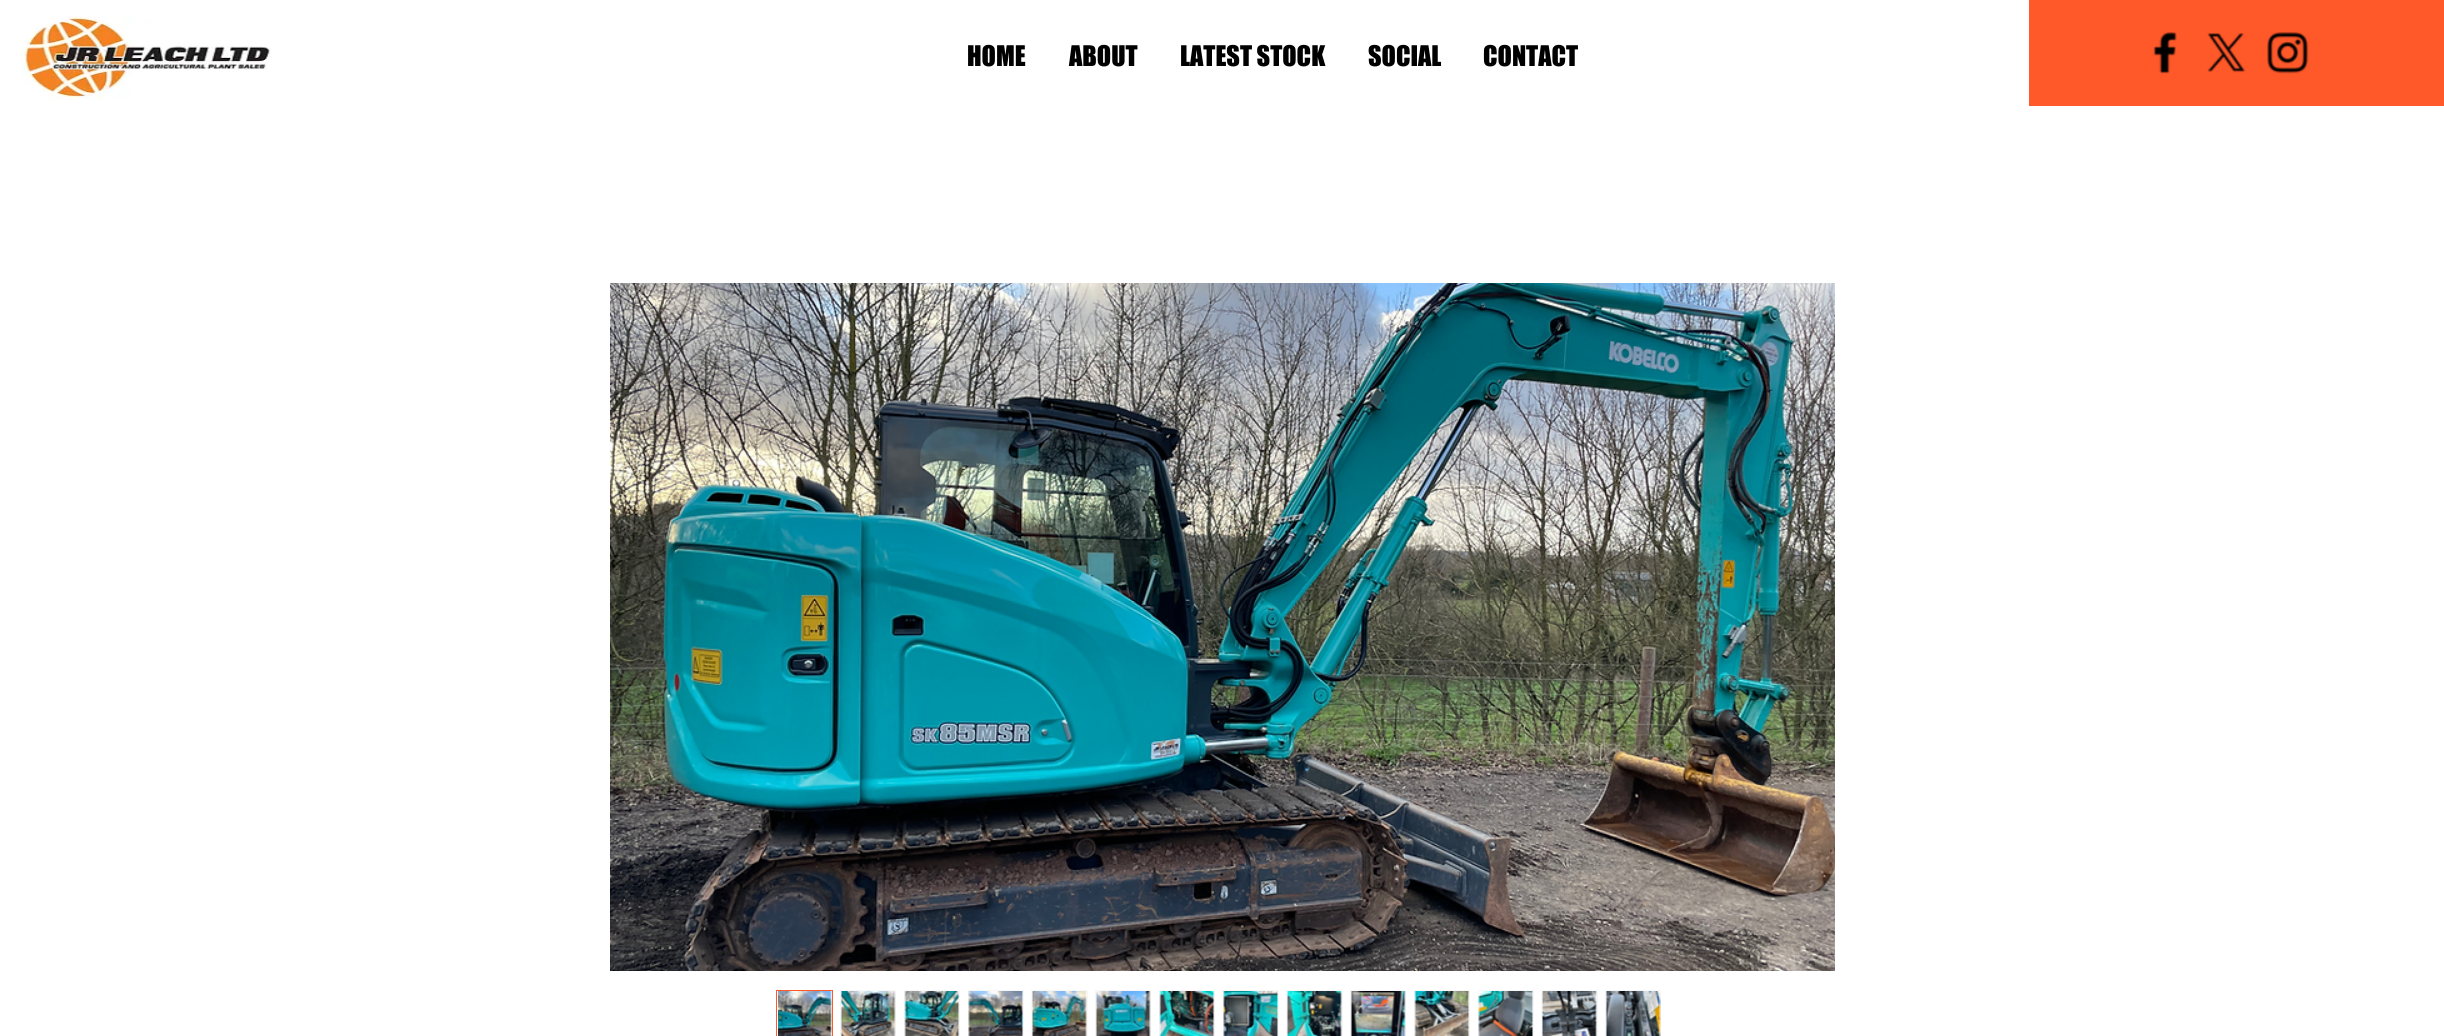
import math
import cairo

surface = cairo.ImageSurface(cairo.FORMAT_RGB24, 2444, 1036)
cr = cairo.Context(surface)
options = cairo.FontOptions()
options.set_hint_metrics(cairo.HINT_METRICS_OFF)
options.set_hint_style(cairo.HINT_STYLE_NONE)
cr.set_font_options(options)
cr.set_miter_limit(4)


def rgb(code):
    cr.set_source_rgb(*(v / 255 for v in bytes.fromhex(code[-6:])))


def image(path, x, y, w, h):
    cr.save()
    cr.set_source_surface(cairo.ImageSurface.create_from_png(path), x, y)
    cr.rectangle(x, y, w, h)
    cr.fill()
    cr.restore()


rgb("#ffffff")
cr.paint()
image("img/1.png", 21, 16, 251, 84)
rgb("#ff5829")
cr.rectangle(2029, 0, 415, 106)
cr.fill()
image("img/2.png", 2153, 32, 24, 42)
image("img/3.png", 2207, 33, 39, 40)
image("img/4.png", 2267, 32, 42, 42)
image("img/5.png", 610, 283, 1225, 688)
cr.rectangle(776.5, 990.5, 56, 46)
cr.set_line_width(1)
cr.stroke()
image("img/6.png", 778, 991, 54, 45)
cr.rectangle(840.5, 990.5, 55, 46)
rgb("#f7f7f7")
cr.stroke()
image("img/7.png", 840, 991, 56, 45)
cr.rectangle(904.5, 990.5, 55, 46)
cr.stroke()
image("img/8.png", 904, 991, 56, 45)
cr.rectangle(968.5, 990.5, 55, 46)
cr.stroke()
image("img/9.png", 968, 991, 55, 45)
cr.rectangle(1031.5, 990.5, 56, 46)
cr.stroke()
image("img/10.png", 1032, 991, 55, 45)
cr.rectangle(1095.5, 990.5, 55, 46)
cr.stroke()
image("img/11.png", 1095, 991, 56, 45)
cr.rectangle(1159.5, 990.5, 55, 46)
cr.stroke()
image("img/12.png", 1159, 991, 56, 45)
cr.rectangle(1223.5, 990.5, 55, 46)
cr.stroke()
image("img/13.png", 1223, 991, 55, 45)
cr.rectangle(1286.5, 990.5, 56, 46)
cr.stroke()
image("img/14.png", 1287, 991, 55, 45)
cr.rectangle(1350.5, 990.5, 55, 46)
cr.stroke()
image("img/15.png", 1350, 991, 56, 45)
cr.rectangle(1414.5, 990.5, 55, 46)
cr.stroke()
image("img/16.png", 1414, 991, 56, 45)
cr.rectangle(1478.5, 990.5, 55, 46)
cr.stroke()
image("img/17.png", 1478, 991, 55, 45)
cr.rectangle(1541.5, 990.5, 56, 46)
cr.stroke()
image("img/18.png", 1542, 991, 55, 45)
cr.rectangle(1605.5, 990.5, 55, 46)
cr.stroke()
image("img/19.png", 1605, 991, 56, 45)
cr.select_font_face("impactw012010")
cr.set_font_size(26.25)
rgb("#000000")
for x, y, s in [
    (967, 66, "HOME"),
    (1069, 66, "ABOUT"),
    (1180, 66, "LATEST STOCK"),
    (1368, 66, "SOCIAL"),
    (1483, 66, "CONTACT"),
]:
    cr.move_to(x, y)
    cr.show_text(s)
surface.write_to_png("page.png")
